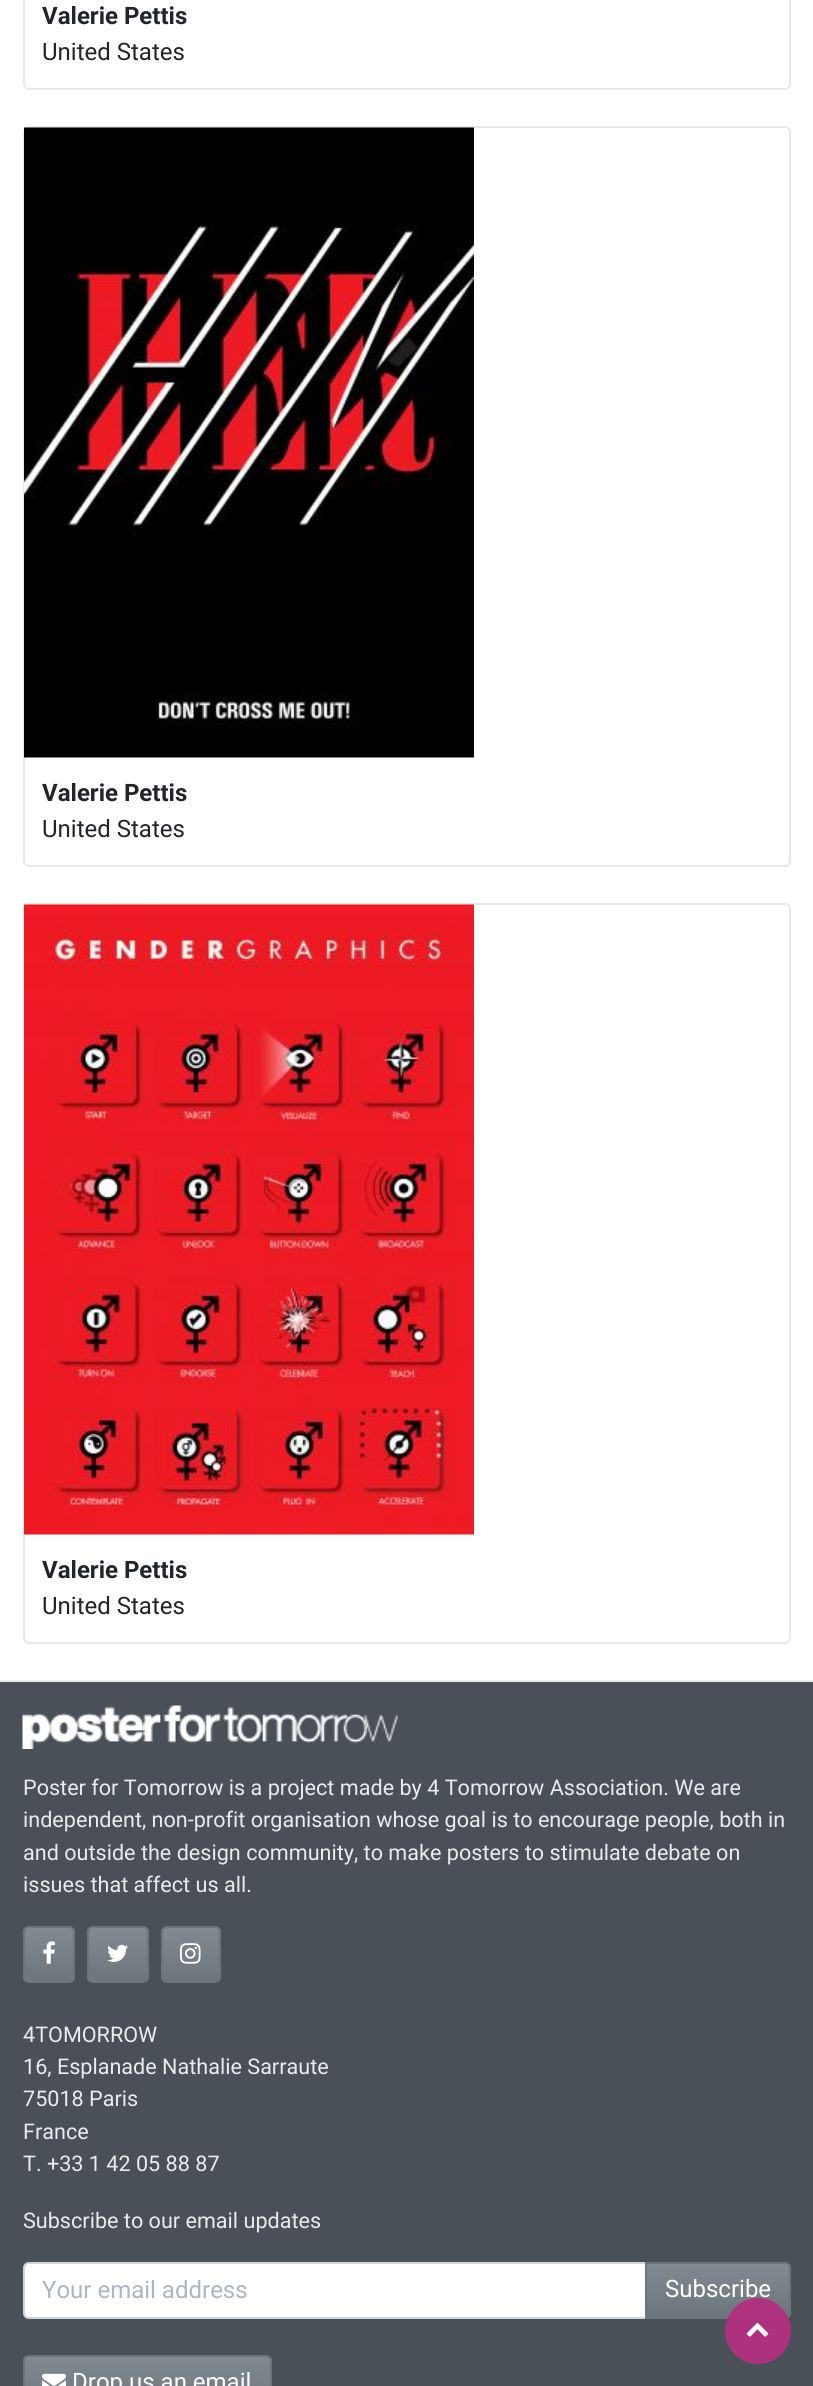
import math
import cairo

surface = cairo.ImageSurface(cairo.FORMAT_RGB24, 813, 2386)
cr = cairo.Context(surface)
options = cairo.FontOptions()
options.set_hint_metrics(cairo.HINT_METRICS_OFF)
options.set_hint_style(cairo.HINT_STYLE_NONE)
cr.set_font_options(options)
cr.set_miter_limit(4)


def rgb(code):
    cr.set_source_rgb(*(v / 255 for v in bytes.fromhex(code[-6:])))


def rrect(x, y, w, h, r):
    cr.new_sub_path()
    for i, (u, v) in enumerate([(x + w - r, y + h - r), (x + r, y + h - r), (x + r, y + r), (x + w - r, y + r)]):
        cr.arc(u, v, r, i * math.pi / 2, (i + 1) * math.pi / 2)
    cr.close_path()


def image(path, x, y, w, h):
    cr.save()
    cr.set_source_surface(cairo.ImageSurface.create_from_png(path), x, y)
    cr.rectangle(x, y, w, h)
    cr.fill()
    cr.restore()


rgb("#ffffff")
cr.paint()
rrect(24, -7, 766, 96, 5)
rgb("#e8e8e8")
cr.stroke()
rrect(24, 127, 766, 739, 5)
cr.stroke()
image("img/1.png", 24, 127, 450, 631)
rrect(24, 904, 766, 739, 5)
cr.stroke()
image("img/2.png", 24, 904, 450, 631)
rgb("#495057")
cr.rectangle(0, 1682, 813, 704)
cr.fill()
rgb("#e9ecef")
cr.rectangle(0, 1680, 813, 2)
cr.fill()
image("img/3.png", 22, 1705, 376, 44)
cr.save()
rrect(23, 1926, 52, 57, 6)
cr.clip()
gradient = cairo.LinearGradient(49, 1928, 49, 1982)
gradient.add_color_stop_rgba(0, 0.51, 0.541, 0.569, 1)
gradient.add_color_stop_rgba(1, 0.424, 0.459, 0.49, 1)
cr.set_source(gradient)
cr.rectangle(23, 1928, 52, 54)
cr.fill()
cr.restore()
rrect(24, 1927, 50, 55, 5)
rgb("#6c757d")
cr.stroke()
image("img/4.png", 43, 1941, 12, 23)
cr.save()
rrect(87, 1926, 62, 57, 6)
cr.clip()
gradient = cairo.LinearGradient(118, 1928, 118, 1982)
gradient.add_color_stop_rgba(0, 0.51, 0.541, 0.569, 1)
gradient.add_color_stop_rgba(1, 0.424, 0.459, 0.49, 1)
cr.set_source(gradient)
cr.rectangle(87, 1928, 62, 54)
cr.fill()
cr.restore()
rrect(88, 1927, 60, 55, 5)
cr.stroke()
image("img/5.png", 107, 1944, 21, 18)
cr.save()
rrect(161, 1926, 60, 57, 6)
cr.clip()
gradient = cairo.LinearGradient(191, 1928, 191, 1982)
gradient.add_color_stop_rgba(0, 0.51, 0.541, 0.569, 1)
gradient.add_color_stop_rgba(1, 0.424, 0.459, 0.49, 1)
cr.set_source(gradient)
cr.rectangle(161, 1928, 60, 54)
cr.fill()
cr.restore()
rrect(162, 1927, 58, 55, 5)
cr.stroke()
image("img/6.png", 180, 1943, 21, 21)
rgb("#ffffff")
cr.new_path()
cr.move_to(29, 2263)
cr.line_to(646, 2263)
cr.line_to(646, 2318)
cr.line_to(29, 2318)
cr.curve_to(26, 2318, 24, 2316, 24, 2313)
cr.line_to(24, 2268)
cr.curve_to(24, 2265, 26, 2263, 29, 2263)
cr.close_path()
cr.fill_preserve()
rgb("#ced4da")
cr.stroke()
cr.save()
cr.new_path()
cr.move_to(645, 2262)
cr.line_to(785, 2262)
cr.curve_to(788.5, 2262, 791, 2264.5, 791, 2268)
cr.line_to(791, 2313)
cr.curve_to(791, 2316.5, 788.5, 2319, 785, 2319)
cr.line_to(645, 2319)
cr.close_path()
cr.clip()
gradient = cairo.LinearGradient(718, 2264, 718, 2318)
gradient.add_color_stop_rgba(0, 0.51, 0.541, 0.569, 1)
gradient.add_color_stop_rgba(1, 0.424, 0.459, 0.49, 1)
cr.set_source(gradient)
cr.rectangle(647, 2264, 144, 54)
cr.fill()
cr.restore()
cr.new_path()
cr.move_to(646, 2263)
cr.line_to(785, 2263)
cr.curve_to(788, 2263, 790, 2265, 790, 2268)
cr.line_to(790, 2313)
cr.curve_to(790, 2316, 788, 2318, 785, 2318)
cr.line_to(646, 2318)
cr.close_path()
rgb("#6c757d")
cr.stroke()
cr.save()
rrect(23, 2355, 249, 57, 6)
cr.clip()
gradient = cairo.LinearGradient(147, 2357, 147, 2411)
gradient.add_color_stop_rgba(0, 0.51, 0.541, 0.569, 1)
gradient.add_color_stop_rgba(1, 0.424, 0.459, 0.49, 1)
cr.set_source(gradient)
cr.rectangle(23, 2357, 249, 29)
cr.fill()
cr.restore()
rrect(24, 2356, 247, 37, 5)
cr.stroke()
image("img/7.png", 42, 2373, 24, 13)
cr.set_source_rgba(0.694, 0.192, 0.498, 0.97)
cr.arc(758, 2331, 33, 0, 2 * math.pi)
cr.fill()
image("img/8.png", 746, 2322, 23, 15)
cr.select_font_face("Roboto", cairo.FONT_SLANT_NORMAL, cairo.FONT_WEIGHT_BOLD)
cr.set_font_size(24)
rgb("#212529")
cr.move_to(42, 24)
cr.show_text("Valerie Pettis")
cr.select_font_face("Roboto")
cr.move_to(42, 60)
cr.show_text("United States")
cr.select_font_face("Roboto", cairo.FONT_SLANT_NORMAL, cairo.FONT_WEIGHT_BOLD)
cr.move_to(42, 801)
cr.show_text("Valerie Pettis")
cr.select_font_face("Roboto")
cr.move_to(42, 837)
cr.show_text("United States")
cr.select_font_face("Roboto", cairo.FONT_SLANT_NORMAL, cairo.FONT_WEIGHT_BOLD)
cr.move_to(42, 1578)
cr.show_text("Valerie Pettis")
cr.select_font_face("Roboto")
cr.move_to(42, 1614)
cr.show_text("United States")
cr.set_font_size(21.6)
rgb("#e9ecef")
for x, y, s in [
    (23, 1795, "Poster for Tomorrow is a project made by 4 Tomorrow Association. We are"),
    (23, 1827, "independent, non-profit organisation whose goal is to encourage people, both in"),
    (23, 1860, "and outside the design community, to make posters to stimulate debate on"),
    (23, 1892, "issues that affect us all."),
    (23, 2042, "4TOMORROW"),
    (23, 2074, "16, Esplanade Nathalie Sarraute"),
    (23, 2106, "75018 Paris"),
    (23, 2139, "France"),
    (23, 2171, "T. +33 1 42 05 88 87"),
    (23, 2228, "Subscribe to our email updates"),
]:
    cr.move_to(x, y)
    cr.show_text(s)
cr.set_font_size(24)
rgb("#adb5bd")
cr.move_to(42, 2298)
cr.show_text("Your email address")
rgb("#ffffff")
cr.move_to(665, 2297)
cr.show_text("Subscribe")
cr.move_to(72, 2390)
cr.show_text("Drop us an email")
surface.write_to_png("page.png")
